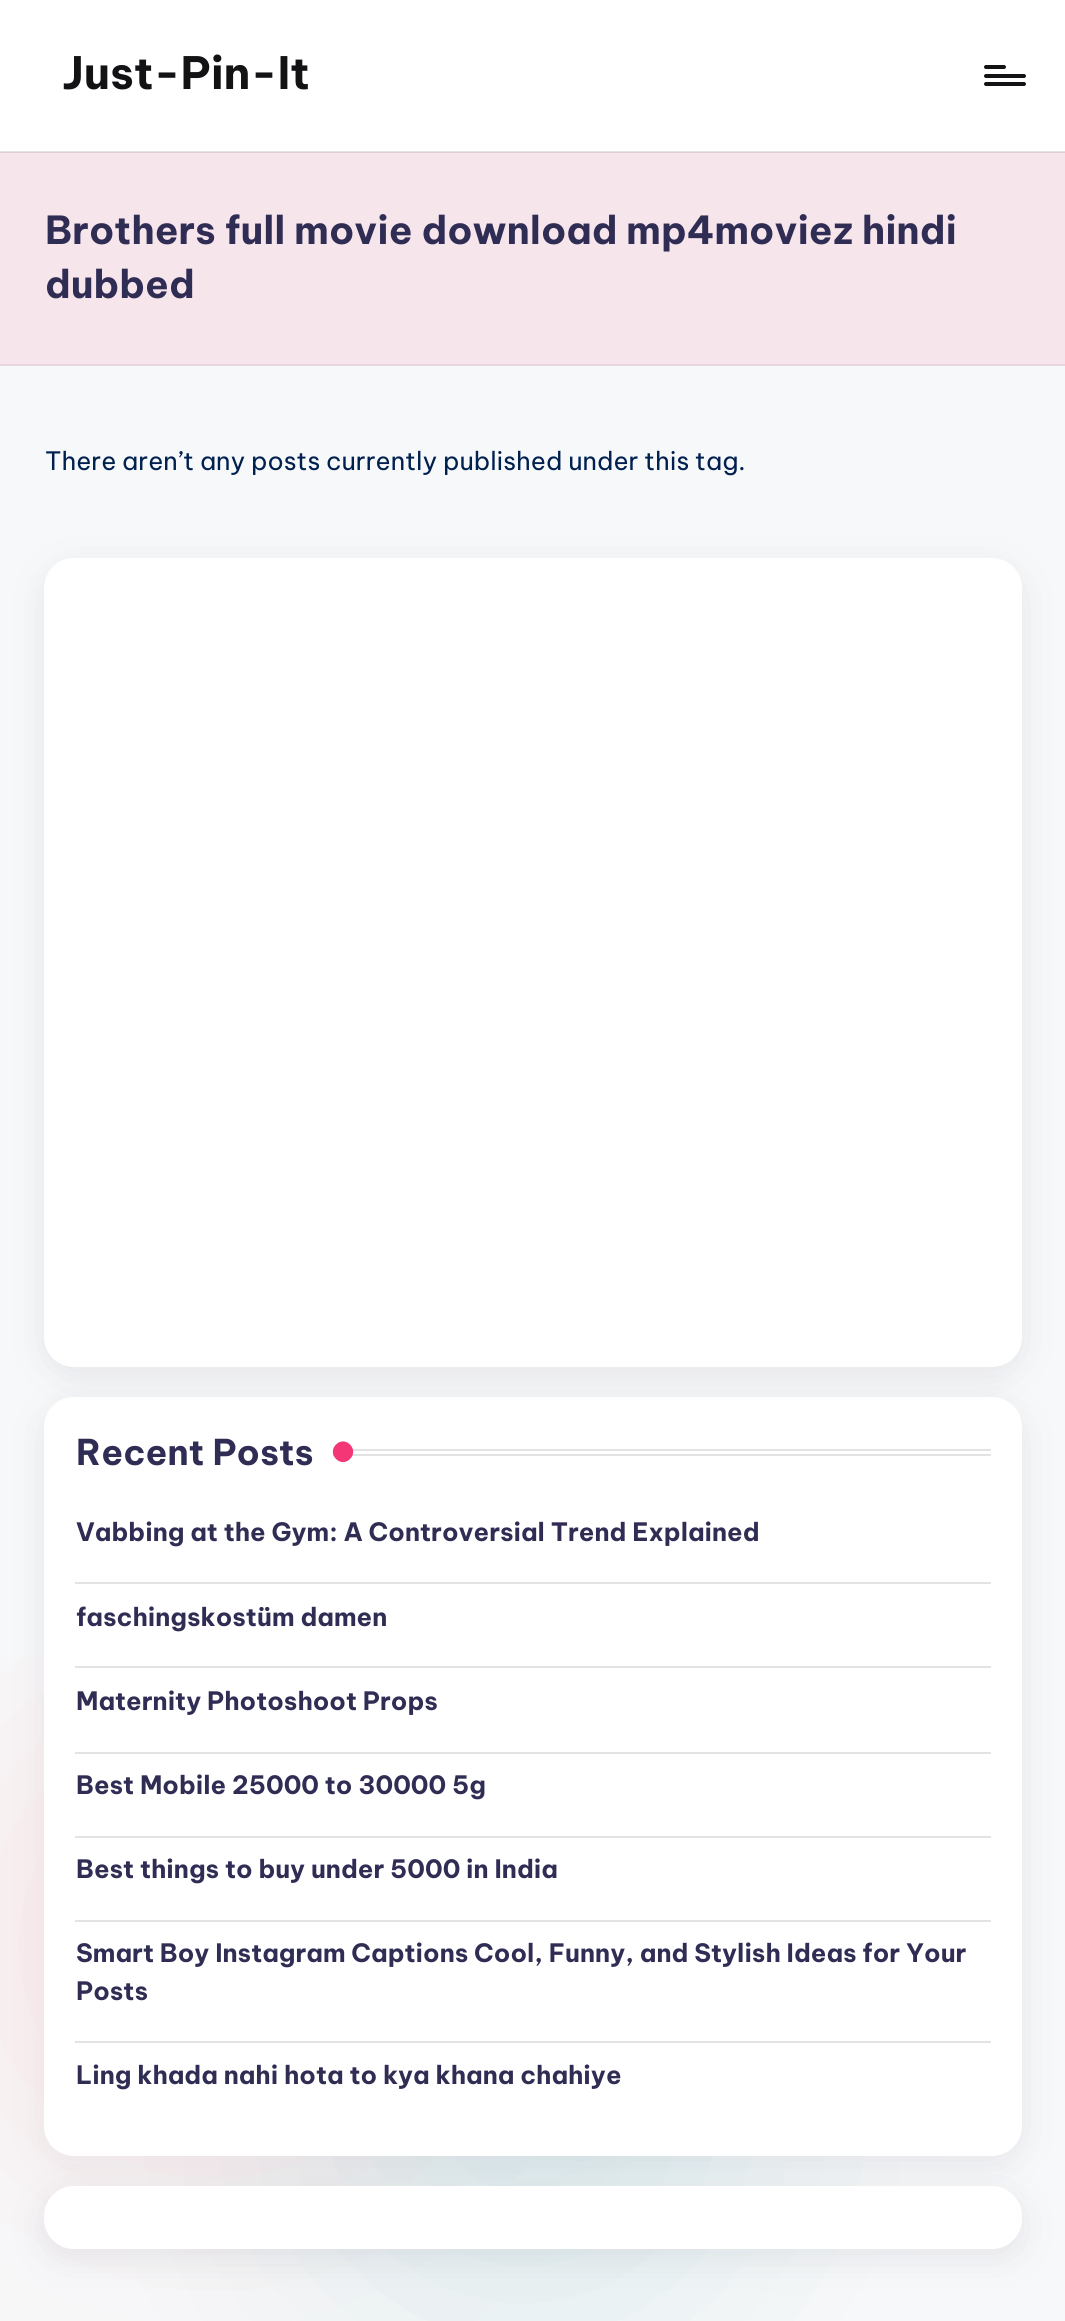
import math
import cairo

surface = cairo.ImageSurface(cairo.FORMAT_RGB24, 1065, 2321)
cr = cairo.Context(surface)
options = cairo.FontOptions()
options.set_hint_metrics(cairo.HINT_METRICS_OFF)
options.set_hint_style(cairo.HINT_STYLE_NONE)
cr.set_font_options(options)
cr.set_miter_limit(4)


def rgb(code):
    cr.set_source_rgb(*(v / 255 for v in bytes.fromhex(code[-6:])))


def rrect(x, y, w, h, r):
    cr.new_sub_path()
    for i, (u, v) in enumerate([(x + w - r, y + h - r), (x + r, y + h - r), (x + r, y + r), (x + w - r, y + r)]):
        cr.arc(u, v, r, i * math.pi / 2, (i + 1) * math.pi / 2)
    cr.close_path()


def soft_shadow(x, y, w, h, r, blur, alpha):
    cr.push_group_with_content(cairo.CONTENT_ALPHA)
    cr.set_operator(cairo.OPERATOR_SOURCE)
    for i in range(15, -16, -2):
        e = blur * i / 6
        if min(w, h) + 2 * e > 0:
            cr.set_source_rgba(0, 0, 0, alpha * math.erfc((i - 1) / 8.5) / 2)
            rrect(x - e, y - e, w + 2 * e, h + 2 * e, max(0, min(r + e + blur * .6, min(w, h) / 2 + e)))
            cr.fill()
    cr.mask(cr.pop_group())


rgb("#f7f8f9")
cr.paint()
for x, y, w, h, color in [
    (0, 153, 1065, 211, "#f7e5ec"),
    (0, 152, 1065, 1, "#e0ced5"),
    (0, 0, 1065, 151, "#ffffff"),
    (0, 151, 1065, 1, "#e3e3e3"),
]:
    rgb(color)
    cr.rectangle(x, y, w, h)
    cr.fill()
rgb("#131315")
rrect(984, 74, 42, 4, 2)
cr.fill()
rrect(984, 65, 22, 4, 2)
cr.fill()
rrect(984, 82, 42, 4, 2)
cr.fill()
rgb("#e7d6dd")
cr.rectangle(0, 364, 1065, 2)
cr.fill()
rgb("#454360")
soft_shadow(44, 567, 978, 809, 30, 17.5, 0.1)
rgb("#ffffff")
rrect(44, 558, 978, 809, 30)
cr.fill()
rgb("#454360")
soft_shadow(44, 1405, 978, 760, 30, 17.5, 0.1)
cr.save()
cr.rectangle(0, 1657, 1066, 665)
cr.clip()
rgb("#f7e3e5")
soft_shadow(0, 1733, 427, 427, 213.5, 112, 1)
cr.restore()
rgb("#04868b")
soft_shadow(308, 1895, 429, 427, 213.5, 112, 0.1)
rgb("#ffffff")
rrect(44, 1397, 978, 759, 30)
cr.fill()
rgb("#e3e3e3")
cr.rectangle(333, 1449, 658, 2)
cr.fill()
cr.rectangle(333, 1454, 658, 2)
cr.fill()
rgb("#f43676")
cr.new_path()
cr.move_to(336, 1444.5)
cr.curve_to(345.5, 1435, 359.5, 1449.5, 350, 1459)
cr.curve_to(340.5, 1468.5, 326.5, 1454, 336, 1444.5)
cr.close_path()
cr.fill()
for x, y, w, h, color in [
    (75, 1582, 916, 2, "#e3e3e3"),
    (75, 1666, 916, 2, "#e3e3e3"),
    (75, 1752, 916, 2, "#e3e3e3"),
    (75, 1836, 916, 2, "#e3e3e3"),
    (75, 1920, 916, 2, "#e3e3e3"),
    (75, 2041, 916, 2, "#e3e3e3"),
]:
    rgb(color)
    cr.rectangle(x, y, w, h)
    cr.fill()
rgb("#454360")
soft_shadow(44, 2195, 978, 63, 30, 17.5, 0.1)
rgb("#ffffff")
rrect(44, 2186, 978, 63, 30)
cr.fill()
cr.select_font_face("Be Vietnam Pro", cairo.FONT_SLANT_NORMAL, cairo.FONT_WEIGHT_BOLD)
cr.set_font_size(44.5)
rgb("#131315")
cr.move_to(62, 89)
cr.show_text("Just-Pin-It")
cr.set_font_size(38.6)
rgb("#302d55")
cr.move_to(45, 244)
cr.show_text("Brothers full movie download mp4moviez hindi")
cr.move_to(45, 298)
cr.show_text("dubbed")
cr.select_font_face("Be Vietnam Pro")
cr.set_font_size(25.25)
rgb("#002050")
cr.move_to(45, 470)
cr.show_text("There aren’t any posts currently published under this tag.")
cr.select_font_face("Be Vietnam Pro", cairo.FONT_SLANT_NORMAL, cairo.FONT_WEIGHT_BOLD)
cr.set_font_size(35.5)
rgb("#302d55")
cr.move_to(76, 1465)
cr.show_text("Recent Posts")
cr.set_font_size(25.25)
for x, y, s in [
    (76, 1541, "Vabbing at the Gym: A Controversial Trend Explained"),
    (76, 1626, "faschingskostüm damen"),
    (76, 1710, "Maternity Photoshoot Props"),
    (76, 1794, "Best Mobile 25000 to 30000 5g"),
    (76, 1878, "Best things to buy under 5000 in India"),
    (76, 1962, "Smart Boy Instagram Captions Cool, Funny, and Stylish Ideas for Your"),
    (76, 2000, "Posts"),
    (76, 2084, "Ling khada nahi hota to kya khana chahiye"),
]:
    cr.move_to(x, y)
    cr.show_text(s)
surface.write_to_png("page.png")
